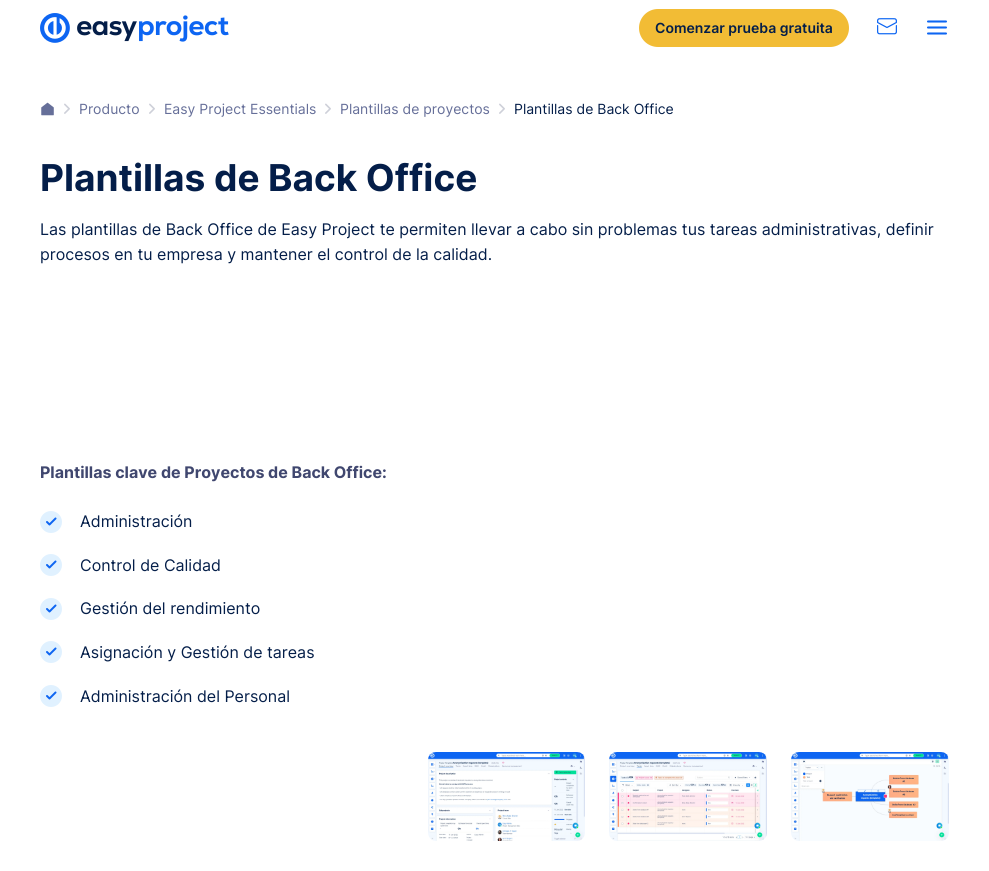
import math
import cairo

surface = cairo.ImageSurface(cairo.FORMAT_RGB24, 989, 871)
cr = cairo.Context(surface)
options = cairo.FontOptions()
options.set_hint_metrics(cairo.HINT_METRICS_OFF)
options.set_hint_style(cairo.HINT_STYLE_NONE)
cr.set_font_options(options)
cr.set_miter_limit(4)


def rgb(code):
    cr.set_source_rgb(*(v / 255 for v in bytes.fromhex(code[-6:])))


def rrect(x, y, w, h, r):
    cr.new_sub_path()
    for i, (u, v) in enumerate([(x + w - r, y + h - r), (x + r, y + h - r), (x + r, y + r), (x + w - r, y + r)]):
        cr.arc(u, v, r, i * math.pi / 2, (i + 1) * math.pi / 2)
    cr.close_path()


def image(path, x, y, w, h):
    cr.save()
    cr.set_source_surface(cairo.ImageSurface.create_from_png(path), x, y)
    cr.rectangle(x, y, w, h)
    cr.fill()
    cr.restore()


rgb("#ffffff")
cr.paint()
image("img/1.png", 40, 13, 189, 30)
rgb("#f2bc35")
rrect(639, 9, 210, 38, 19)
cr.fill()
image("img/2.png", 877, 18, 20, 17)
image("img/3.png", 927, 20, 20, 15)
image("img/4.png", 41, 102, 13, 14)
image("img/5.png", 64, 103, 6, 11)
image("img/5.png", 149, 103, 6, 11)
image("img/5.png", 325, 103, 6, 11)
image("img/5.png", 499, 103, 6, 11)
rgb("#e0f1ff")
cr.arc(51, 522, 11, 0, 2 * math.pi)
cr.fill()
image("img/6.png", 46, 517, 11, 9)
cr.arc(51, 565, 11, 0, 2 * math.pi)
cr.fill()
image("img/6.png", 46, 560, 11, 9)
cr.arc(51, 609, 11, 0, 2 * math.pi)
cr.fill()
image("img/6.png", 46, 604, 11, 9)
cr.arc(51, 652, 11, 0, 2 * math.pi)
cr.fill()
image("img/6.png", 46, 647, 11, 9)
cr.arc(51, 696, 11, 0, 2 * math.pi)
cr.fill()
image("img/6.png", 46, 691, 11, 9)
image("img/7.png", 428, 752, 157, 89)
image("img/8.png", 609, 752, 158, 89)
image("img/9.png", 791, 752, 158, 89)
cr.select_font_face("Inter SemiBold")
cr.set_font_size(14)
rgb("#041e49")
cr.move_to(655, 33)
cr.show_text("Comenzar prueba gratuita")
cr.select_font_face("Inter")
rgb("#666f99")
for x, y, s in [
    (79, 114, "Producto"),
    (164, 114, "Easy Project Essentials"),
    (340, 114, "Plantillas de proyectos"),
]:
    cr.move_to(x, y)
    cr.show_text(s)
rgb("#041e49")
cr.move_to(514, 114)
cr.show_text("Plantillas de Back Office")
cr.select_font_face("Inter", cairo.FONT_SLANT_NORMAL, cairo.FONT_WEIGHT_BOLD)
cr.set_font_size(37)
cr.move_to(40, 191)
cr.show_text("Plantillas de Back Office")
cr.select_font_face("Inter")
cr.set_font_size(16)
cr.move_to(40, 235)
cr.show_text("Las plantillas de Back Office de Easy Project te permiten llevar a cabo sin problemas tus tareas administrativas, definir")
cr.move_to(40, 260)
cr.show_text("procesos en tu empresa y mantener el control de la calidad.")
cr.select_font_face("Inter", cairo.FONT_SLANT_NORMAL, cairo.FONT_WEIGHT_BOLD)
rgb("#40476f")
cr.move_to(40, 478)
cr.show_text("Plantillas clave de Proyectos de Back Office:")
cr.select_font_face("Inter")
rgb("#041e49")
for x, y, s in [
    (80, 527, "Administración"),
    (80, 571, "Control de Calidad"),
    (80, 614, "Gestión del rendimiento"),
    (80, 658, "Asignación y Gestión de tareas"),
    (80, 702, "Administración del Personal"),
]:
    cr.move_to(x, y)
    cr.show_text(s)
surface.write_to_png("page.png")
